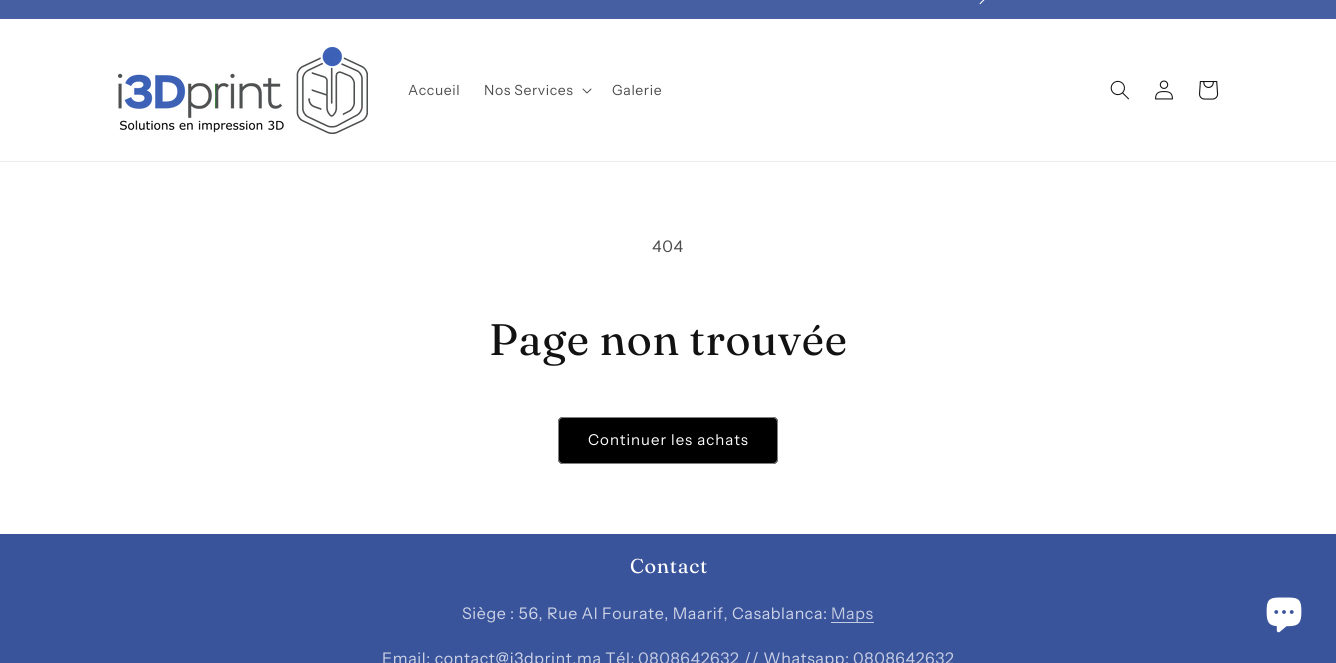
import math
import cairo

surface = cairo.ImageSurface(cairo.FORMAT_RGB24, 1336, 663)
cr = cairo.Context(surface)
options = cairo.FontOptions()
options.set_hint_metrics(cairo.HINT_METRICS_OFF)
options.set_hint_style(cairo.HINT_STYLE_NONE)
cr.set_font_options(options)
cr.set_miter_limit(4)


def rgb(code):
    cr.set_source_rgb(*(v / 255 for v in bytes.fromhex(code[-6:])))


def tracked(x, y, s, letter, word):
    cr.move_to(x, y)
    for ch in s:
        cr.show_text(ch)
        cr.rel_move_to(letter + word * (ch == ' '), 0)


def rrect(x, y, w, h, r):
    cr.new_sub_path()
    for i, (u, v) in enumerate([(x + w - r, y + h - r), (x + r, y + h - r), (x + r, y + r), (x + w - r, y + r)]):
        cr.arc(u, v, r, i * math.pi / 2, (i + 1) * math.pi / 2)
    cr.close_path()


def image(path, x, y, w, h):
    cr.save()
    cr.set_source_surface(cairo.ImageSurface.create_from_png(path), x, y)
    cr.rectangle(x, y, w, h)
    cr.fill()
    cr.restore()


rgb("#ffffff")
cr.paint()
rgb("#4a62a4")
cr.rectangle(0, 18, 1336, 1)
cr.fill()
rgb("#465ea2")
cr.rectangle(0, 0, 1336, 18)
cr.fill()
image("img/1.png", 979, 0, 6, 5)
rgb("#ececec")
cr.rectangle(0, 161, 1336, 1)
cr.fill()
image("img/2.png", 118, 47, 250, 87)
image("img/3.png", 582, 88, 10, 6)
image("img/4.png", 1110, 80, 19, 20)
image("img/5.png", 1155, 80, 18, 20)
image("img/6.png", 1199, 81, 20, 19)
rgb("#000000")
rrect(558, 417, 220, 47, 5)
cr.fill()
rrect(558.5, 417.5, 219, 46, 4.5)
cr.set_line_width(1)
cr.stroke()
rrect(558.5, 417.5, 219, 46, 4.5)
cr.set_source_rgba(1, 1, 1, 0.5)
cr.stroke()
rgb("#3a549c")
cr.rectangle(0, 534, 1336, 129)
cr.fill()
rgb("#c4cce1")
cr.rectangle(831, 622, 43, 1)
cr.fill()
image("img/7.png", 1266, 597, 36, 36)
cr.select_font_face("Instrument Sans")
cr.set_font_size(14)
rgb("#4d4d4d")
for x, y, s in [
    (408, 95, "Accueil"),
    (484, 95, "Nos Services"),
    (612, 95, "Galerie"),
]:
    tracked(x, y, s, 0.6, 0)
cr.set_font_size(16)
tracked(652, 252, "404", 0.6, 0)
cr.select_font_face("Fraunces")
cr.set_font_size(44)
rgb("#121212")
tracked(489, 355, "Page non trouvée", 0.7, 0)
cr.select_font_face("Instrument Sans")
cr.set_font_size(15)
rgb("#ffffff")
tracked(588, 445, "Continuer les achats", 1, 0)
cr.select_font_face("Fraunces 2")
cr.set_font_size(20)
tracked(630, 573, "Contact", 0.7, 0)
cr.select_font_face("Instrument Sans")
cr.set_font_size(16)
rgb("#ced4e6")
tracked(462, 619, "Siège : 56, Rue Al Fourate, Maarif, Casablanca:", 0.6, 0)
rgb("#c4cce1")
tracked(831, 619, "Maps", 0.6, 0)
rgb("#ced4e6")
tracked(382, 664, "Email: contact@i3dprint.ma Tél:", 0.6, 0)
rgb("#c4cce1")
tracked(638, 664, "0808642632", 0.6, 0)
rgb("#ced4e6")
tracked(744, 664, "// Whatsapp:", 0.6, 0)
rgb("#c4cce1")
tracked(853, 664, "0808642632", 0.6, 0)
surface.write_to_png("page.png")
